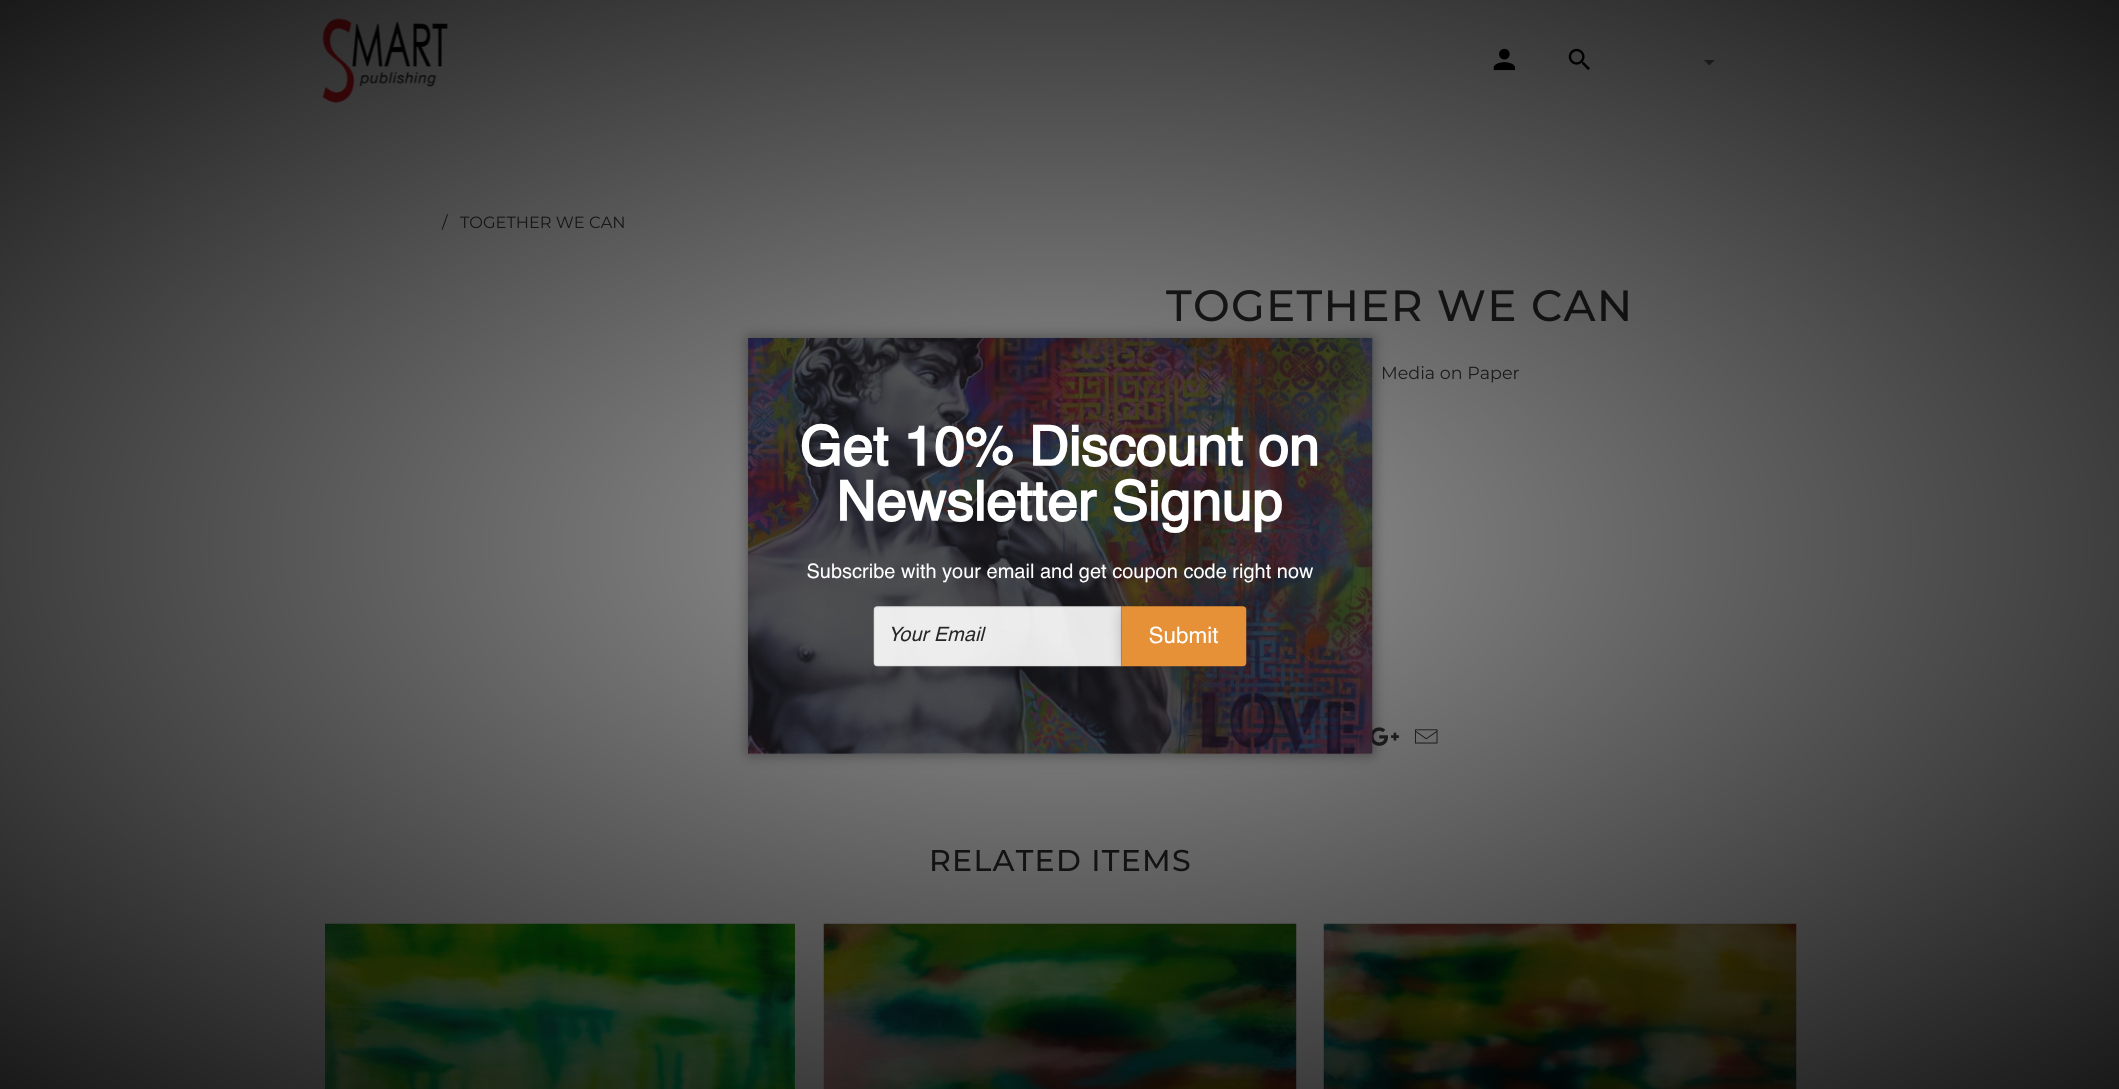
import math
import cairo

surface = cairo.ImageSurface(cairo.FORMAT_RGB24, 2119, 1089)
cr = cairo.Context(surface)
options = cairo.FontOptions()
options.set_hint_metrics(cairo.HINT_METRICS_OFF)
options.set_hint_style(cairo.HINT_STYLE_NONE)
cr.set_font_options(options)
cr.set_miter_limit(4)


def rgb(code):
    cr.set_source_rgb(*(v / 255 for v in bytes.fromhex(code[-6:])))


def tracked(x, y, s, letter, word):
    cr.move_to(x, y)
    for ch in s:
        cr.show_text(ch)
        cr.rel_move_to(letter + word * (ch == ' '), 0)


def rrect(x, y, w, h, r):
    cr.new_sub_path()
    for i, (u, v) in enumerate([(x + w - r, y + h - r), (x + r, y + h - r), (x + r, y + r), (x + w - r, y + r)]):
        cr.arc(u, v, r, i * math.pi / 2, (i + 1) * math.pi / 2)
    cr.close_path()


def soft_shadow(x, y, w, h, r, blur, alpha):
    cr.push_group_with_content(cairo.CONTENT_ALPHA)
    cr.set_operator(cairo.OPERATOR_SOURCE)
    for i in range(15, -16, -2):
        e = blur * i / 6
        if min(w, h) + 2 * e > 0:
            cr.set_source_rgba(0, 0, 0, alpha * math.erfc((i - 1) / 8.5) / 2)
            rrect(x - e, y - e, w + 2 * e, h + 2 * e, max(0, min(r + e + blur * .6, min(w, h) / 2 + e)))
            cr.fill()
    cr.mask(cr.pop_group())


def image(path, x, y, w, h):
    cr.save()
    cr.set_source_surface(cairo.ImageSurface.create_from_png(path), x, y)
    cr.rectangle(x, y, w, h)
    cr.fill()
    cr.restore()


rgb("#ffffff")
cr.paint()
image("img/2.png", 322, 18, 126, 85)
image("img/3.png", 1493, 48, 22, 23)
image("img/4.png", 1568, 48, 22, 22)
image("img/5.png", 1703, 60, 12, 6)
image("img/6.png", 1372, 727, 27, 19)
image("img/7.png", 1415, 729, 23, 15)
image("img/8.png", 325, 923, 470, 166)
image("img/9.png", 823, 923, 474, 166)
image("img/10.png", 1323, 923, 474, 166)
cr.select_font_face("Montserrat")
cr.set_font_size(16.25)
rgb("#404040")
cr.move_to(442, 228)
cr.show_text("/")
cr.move_to(460, 228)
cr.show_text("TOGETHER WE CAN")
cr.select_font_face("Montserrat Medium")
cr.set_font_size(43.75)
rgb("#303030")
tracked(1166, 321, "TOGETHER WE CAN", 1.25, 0)
cr.select_font_face("Montserrat")
cr.set_font_size(17.5)
rgb("#404040")
cr.move_to(1381, 379)
cr.show_text("Media on Paper")
cr.select_font_face("Montserrat Medium")
cr.set_font_size(30)
rgb("#303030")
tracked(929, 871, "RELATED ITEMS", 1.25, 0)
gradient = cairo.RadialGradient(0, 0, 0, 0, 0, 1)
gradient.set_matrix(cairo.Matrix(1 / 1499, 0, 0, 1 / 771, -1 * 1060 / 1499, -1 * 545 / 771))
gradient.add_color_stop_rgba(0, 0, 0, 0, 0.4)
gradient.add_color_stop_rgba(1, 0, 0, 0, 0.9)
cr.set_source(gradient)
cr.rectangle(0, 0, 2119, 1089)
cr.fill()
rgb("#000000")
soft_shadow(748, 338, 625, 416, 2.5, 7, 0.4)
image("img/1.png", 748, 338, 625, 416)
surface.write_to_png("page.png")
